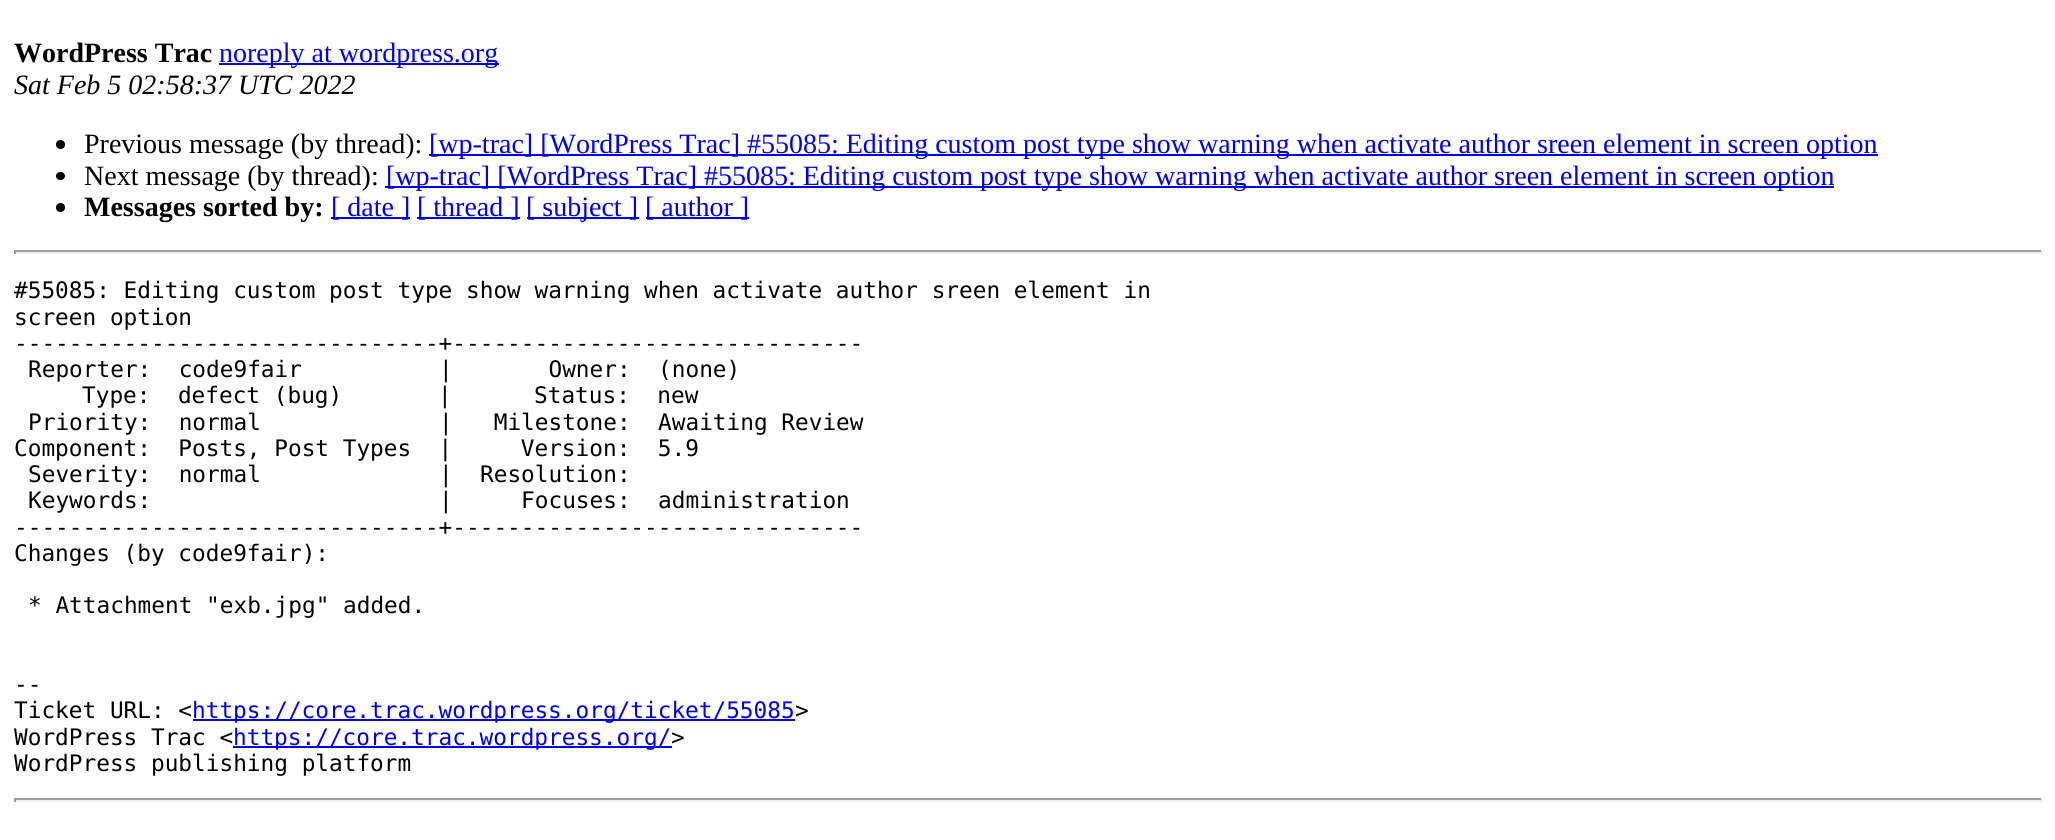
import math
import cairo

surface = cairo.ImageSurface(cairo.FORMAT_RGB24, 2055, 840)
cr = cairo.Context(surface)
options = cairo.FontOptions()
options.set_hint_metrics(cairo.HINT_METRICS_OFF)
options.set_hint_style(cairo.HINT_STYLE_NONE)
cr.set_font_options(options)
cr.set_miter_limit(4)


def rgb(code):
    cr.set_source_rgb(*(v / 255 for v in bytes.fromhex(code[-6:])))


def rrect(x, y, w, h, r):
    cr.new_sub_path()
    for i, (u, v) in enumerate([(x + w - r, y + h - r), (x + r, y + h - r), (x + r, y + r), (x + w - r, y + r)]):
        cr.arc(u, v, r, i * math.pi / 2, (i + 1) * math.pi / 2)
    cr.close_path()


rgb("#ffffff")
cr.paint()
rgb("#0000ee")
cr.rectangle(219, 63, 280, 2)
cr.fill()
rgb("#000000")
cr.arc(60.5, 144.5, 4.5, 0, 2 * math.pi)
cr.fill()
rgb("#0000ee")
cr.rectangle(429, 154, 1449, 2)
cr.fill()
rgb("#000000")
rrect(56, 172, 9, 8, 4)
cr.fill()
rgb("#0000ee")
cr.rectangle(385, 186, 1449, 2)
cr.fill()
rgb("#000000")
cr.arc(60.5, 207.5, 4.5, 0, 2 * math.pi)
cr.fill()
for x, y, w, h, color in [
    (331, 217, 79, 2, "#0000ee"),
    (417, 217, 103, 2, "#0000ee"),
    (527, 217, 112, 2, "#0000ee"),
    (646, 217, 103, 2, "#0000ee"),
    (14, 250, 2028, 2, "#9f9f9f"),
    (2041, 250, 2, 4, "#eeeeee"),
    (14, 252, 2028, 2, "#eeeeee"),
    (14, 250, 2, 4, "#9f9f9f"),
    (193, 719, 602, 2, "#0000ee"),
    (233, 746, 439, 2, "#0000ee"),
    (14, 798, 2028, 2, "#9f9f9f"),
    (2041, 798, 2, 4, "#eeeeee"),
    (14, 800, 2028, 2, "#eeeeee"),
    (14, 798, 2, 4, "#9f9f9f"),
]:
    rgb(color)
    cr.rectangle(x, y, w, h)
    cr.fill()
cr.select_font_face("Liberation Serif", cairo.FONT_SLANT_NORMAL, cairo.FONT_WEIGHT_BOLD)
cr.set_font_size(28)
rgb("#000000")
cr.move_to(14, 62)
cr.show_text("WordPress Trac")
cr.select_font_face("Liberation Serif")
rgb("#0000ee")
cr.move_to(219, 62)
cr.show_text("noreply at wordpress.org")
cr.select_font_face("Liberation Serif", cairo.FONT_SLANT_ITALIC)
rgb("#000000")
cr.move_to(14, 94)
cr.show_text("Sat Feb 5 02:58:37 UTC 2022")
cr.select_font_face("Liberation Serif")
cr.move_to(84, 153)
cr.show_text("Previous message (by thread):")
rgb("#0000ee")
cr.move_to(429, 153)
cr.show_text("[wp-trac] [WordPress Trac] #55085: Editing custom post type show warning when activate author sreen element in screen option")
rgb("#000000")
cr.move_to(84, 185)
cr.show_text("Next message (by thread):")
rgb("#0000ee")
cr.move_to(386, 185)
cr.show_text("[wp-trac] [WordPress Trac] #55085: Editing custom post type show warning when activate author sreen element in screen option")
cr.select_font_face("Liberation Serif", cairo.FONT_SLANT_NORMAL, cairo.FONT_WEIGHT_BOLD)
rgb("#000000")
cr.move_to(84, 216)
cr.show_text("Messages sorted by:")
cr.select_font_face("Liberation Serif")
rgb("#0000ee")
for x, y, s in [
    (331, 216, "[ date ]"),
    (417, 216, "[ thread ]"),
    (526, 216, "[ subject ]"),
    (645, 216, "[ author ]"),
]:
    cr.move_to(x, y)
    cr.show_text(s)
cr.select_font_face("DejaVu Sans Mono")
cr.set_font_size(22.75)
rgb("#000000")
for x, y, s in [
    (14, 298, "#55085: Editing custom post type show warning when activate author sreen element in"),
    (14, 325, "screen option"),
    (14, 351, "-------------------------------+------------------------------"),
    (28, 377, "Reporter:  code9fair          |       Owner:  (none)"),
    (82, 403, "Type:  defect (bug)       |      Status:  new"),
    (28, 430, "Priority:  normal             |   Milestone:  Awaiting Review"),
    (14, 456, "Component:  Posts, Post Types  |     Version:  5.9"),
    (28, 482, "Severity:  normal             |  Resolution:"),
    (28, 508, "Keywords:                     |     Focuses:  administration"),
    (14, 535, "-------------------------------+------------------------------"),
    (14, 561, "Changes (by code9fair):"),
    (28, 613, "* Attachment \"exb.jpg\" added."),
    (14, 692, "--"),
    (14, 718, "Ticket URL: <"),
]:
    cr.move_to(x, y)
    cr.show_text(s)
rgb("#0000ee")
cr.move_to(192, 718)
cr.show_text("https://core.trac.wordpress.org/ticket/55085")
rgb("#000000")
cr.move_to(795, 718)
cr.show_text(">")
cr.move_to(14, 745)
cr.show_text("WordPress Trac <")
rgb("#0000ee")
cr.move_to(233, 745)
cr.show_text("https://core.trac.wordpress.org/")
rgb("#000000")
cr.move_to(671, 745)
cr.show_text(">")
cr.move_to(14, 771)
cr.show_text("WordPress publishing platform")
surface.write_to_png("page.png")
